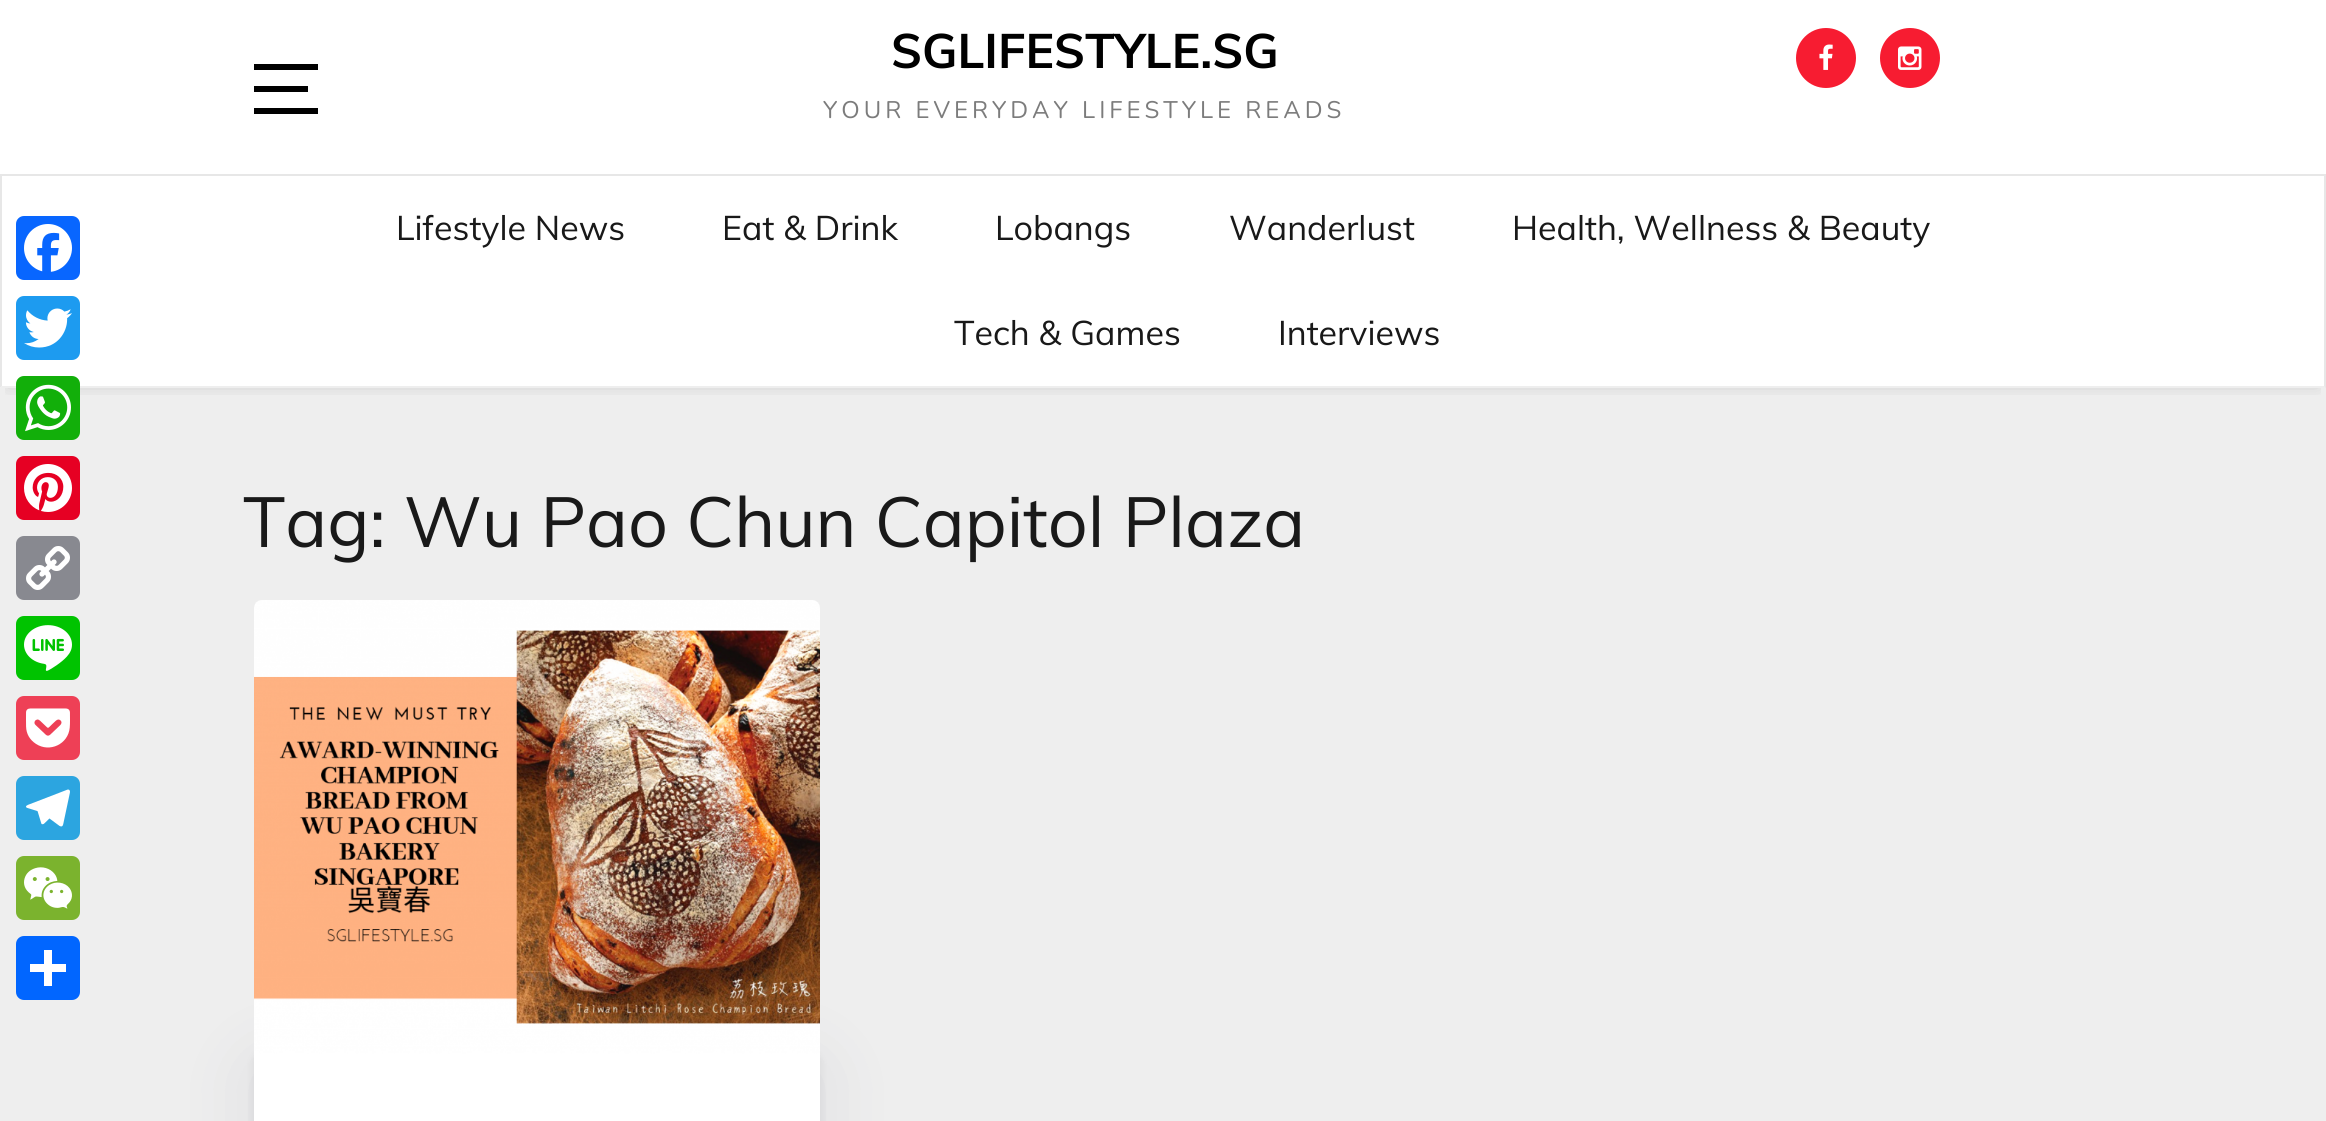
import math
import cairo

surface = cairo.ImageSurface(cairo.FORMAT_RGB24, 2326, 1121)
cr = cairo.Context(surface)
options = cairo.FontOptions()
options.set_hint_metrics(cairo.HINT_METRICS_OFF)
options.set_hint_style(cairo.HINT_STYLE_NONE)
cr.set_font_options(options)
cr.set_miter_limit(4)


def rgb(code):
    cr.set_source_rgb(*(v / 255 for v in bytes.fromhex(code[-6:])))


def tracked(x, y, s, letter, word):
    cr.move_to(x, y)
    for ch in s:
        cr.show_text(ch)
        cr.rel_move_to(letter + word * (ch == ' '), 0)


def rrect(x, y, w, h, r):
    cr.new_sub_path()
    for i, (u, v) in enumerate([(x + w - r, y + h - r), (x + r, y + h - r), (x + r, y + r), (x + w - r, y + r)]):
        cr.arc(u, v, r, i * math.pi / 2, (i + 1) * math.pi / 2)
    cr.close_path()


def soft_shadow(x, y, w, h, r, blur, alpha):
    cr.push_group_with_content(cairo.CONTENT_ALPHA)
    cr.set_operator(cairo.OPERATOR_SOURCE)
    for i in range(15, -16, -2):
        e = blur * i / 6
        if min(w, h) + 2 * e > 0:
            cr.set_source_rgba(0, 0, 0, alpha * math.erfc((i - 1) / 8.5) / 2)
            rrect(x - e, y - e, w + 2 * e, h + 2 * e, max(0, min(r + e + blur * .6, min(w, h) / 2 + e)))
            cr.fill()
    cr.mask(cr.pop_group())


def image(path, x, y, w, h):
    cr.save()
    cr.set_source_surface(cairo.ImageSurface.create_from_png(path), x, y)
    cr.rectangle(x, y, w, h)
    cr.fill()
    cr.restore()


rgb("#eeeeee")
cr.paint()
rgb("#ffffff")
cr.rectangle(0, 0, 2326, 388)
cr.fill()
cr.save()
cr.rectangle(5, 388, 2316, 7)
cr.clip()
rgb("#000000")
soft_shadow(8, 188, 2310, 198, 0, 8, 0.15)
cr.restore()
rgb("#0866ff")
rrect(16, 216, 64, 64, 8)
cr.fill()
image("img/1.png", 24, 224, 48, 48)
rgb("#1d9bf0")
rrect(16, 296, 64, 64, 8)
cr.fill()
image("img/2.png", 24, 308, 48, 40)
rgb("#e7e7e7")
cr.rectangle(0, 174, 2326, 2)
cr.fill()
cr.new_path()
cr.move_to(2326, 174)
cr.line_to(2326, 388)
cr.line_to(2324, 386)
cr.line_to(2324, 176)
cr.close_path()
cr.fill()
cr.set_source_rgba(0, 0, 0, 0.07)
cr.new_path()
cr.move_to(2326, 388)
cr.line_to(0, 388)
cr.line_to(2, 386)
cr.line_to(2324, 386)
cr.close_path()
cr.fill()
rgb("#12af0a")
rrect(16, 376, 64, 64, 8)
cr.fill()
image("img/3.png", 25, 384, 46, 48)
rgb("#e60023")
rrect(16, 456, 64, 64, 8)
cr.fill()
image("img/4.png", 24, 464, 48, 48)
rgb("#888990")
rrect(16, 536, 64, 64, 8)
cr.fill()
image("img/5.png", 26, 546, 44, 44)
rgb("#00c300")
rrect(16, 616, 64, 64, 8)
cr.fill()
image("img/6.png", 24, 625, 48, 46)
rgb("#ee4056")
rrect(16, 696, 64, 64, 8)
cr.fill()
image("img/7.png", 26, 708, 44, 40)
rgb("#2ca5e0")
rrect(16, 776, 64, 64, 8)
cr.fill()
image("img/8.png", 26, 789, 44, 38)
rgb("#7bb32e")
rrect(16, 856, 64, 64, 8)
cr.fill()
image("img/9.png", 24, 867, 48, 42)
rgb("#0166ff")
rrect(16, 936, 64, 64, 8)
cr.fill()
for x, y, w, h, color in [
    (44, 950, 8, 36, "#ffffff"),
    (30, 964, 36, 8, "#ffffff"),
    (254, 86, 54, 6, "#000000"),
    (254, 64, 64, 6, "#000000"),
    (254, 108, 64, 6, "#000000"),
]:
    rgb(color)
    cr.rectangle(x, y, w, h)
    cr.fill()
rgb("#f71c31")
cr.arc(1826, 58, 30, 0, 2 * math.pi)
cr.fill()
image("img/10.png", 1819, 44, 14, 26)
cr.arc(1910, 58, 30, 0, 2 * math.pi)
cr.fill()
image("img/11.png", 1898, 46, 24, 24)
rgb("#e7e7e7")
cr.new_path()
cr.move_to(0, 388)
cr.line_to(0, 174)
cr.line_to(2, 176)
cr.line_to(2, 386)
cr.close_path()
cr.fill()
rgb("#000000")
soft_shadow(254, 1054, 566, 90, 8, 5, 0.07)
rgb("#32325d")
soft_shadow(254, 1064, 566, 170, 8, 35, 0.1)
image("img/12.png", 254, 600, 566, 454)
rgb("#ffffff")
cr.rectangle(254, 1054, 566, 67)
cr.fill()
cr.select_font_face("Muli", cairo.FONT_SLANT_NORMAL, cairo.FONT_WEIGHT_BOLD)
cr.set_font_size(48)
rgb("#000000")
cr.move_to(891, 68)
cr.show_text("SGLIFESTYLE.SG")
cr.select_font_face("Nunito")
cr.set_font_size(24)
rgb("#7c7c7c")
tracked(823, 118, "YOUR EVERYDAY LIFESTYLE READS", 4, 0)
cr.select_font_face("Muli")
cr.set_font_size(34)
rgb("#191919")
for x, y, s in [
    (396, 240, "Lifestyle News"),
    (722, 240, "Eat & Drink"),
    (995, 240, "Lobangs"),
    (1229, 240, "Wanderlust"),
    (1512, 240, "Health, Wellness & Beauty"),
    (954, 345, "Tech & Games"),
    (1278, 345, "Interviews"),
]:
    cr.move_to(x, y)
    cr.show_text(s)
cr.set_font_size(70)
cr.move_to(243, 547)
cr.show_text("Tag: Wu Pao Chun Capitol Plaza")
surface.write_to_png("page.png")
